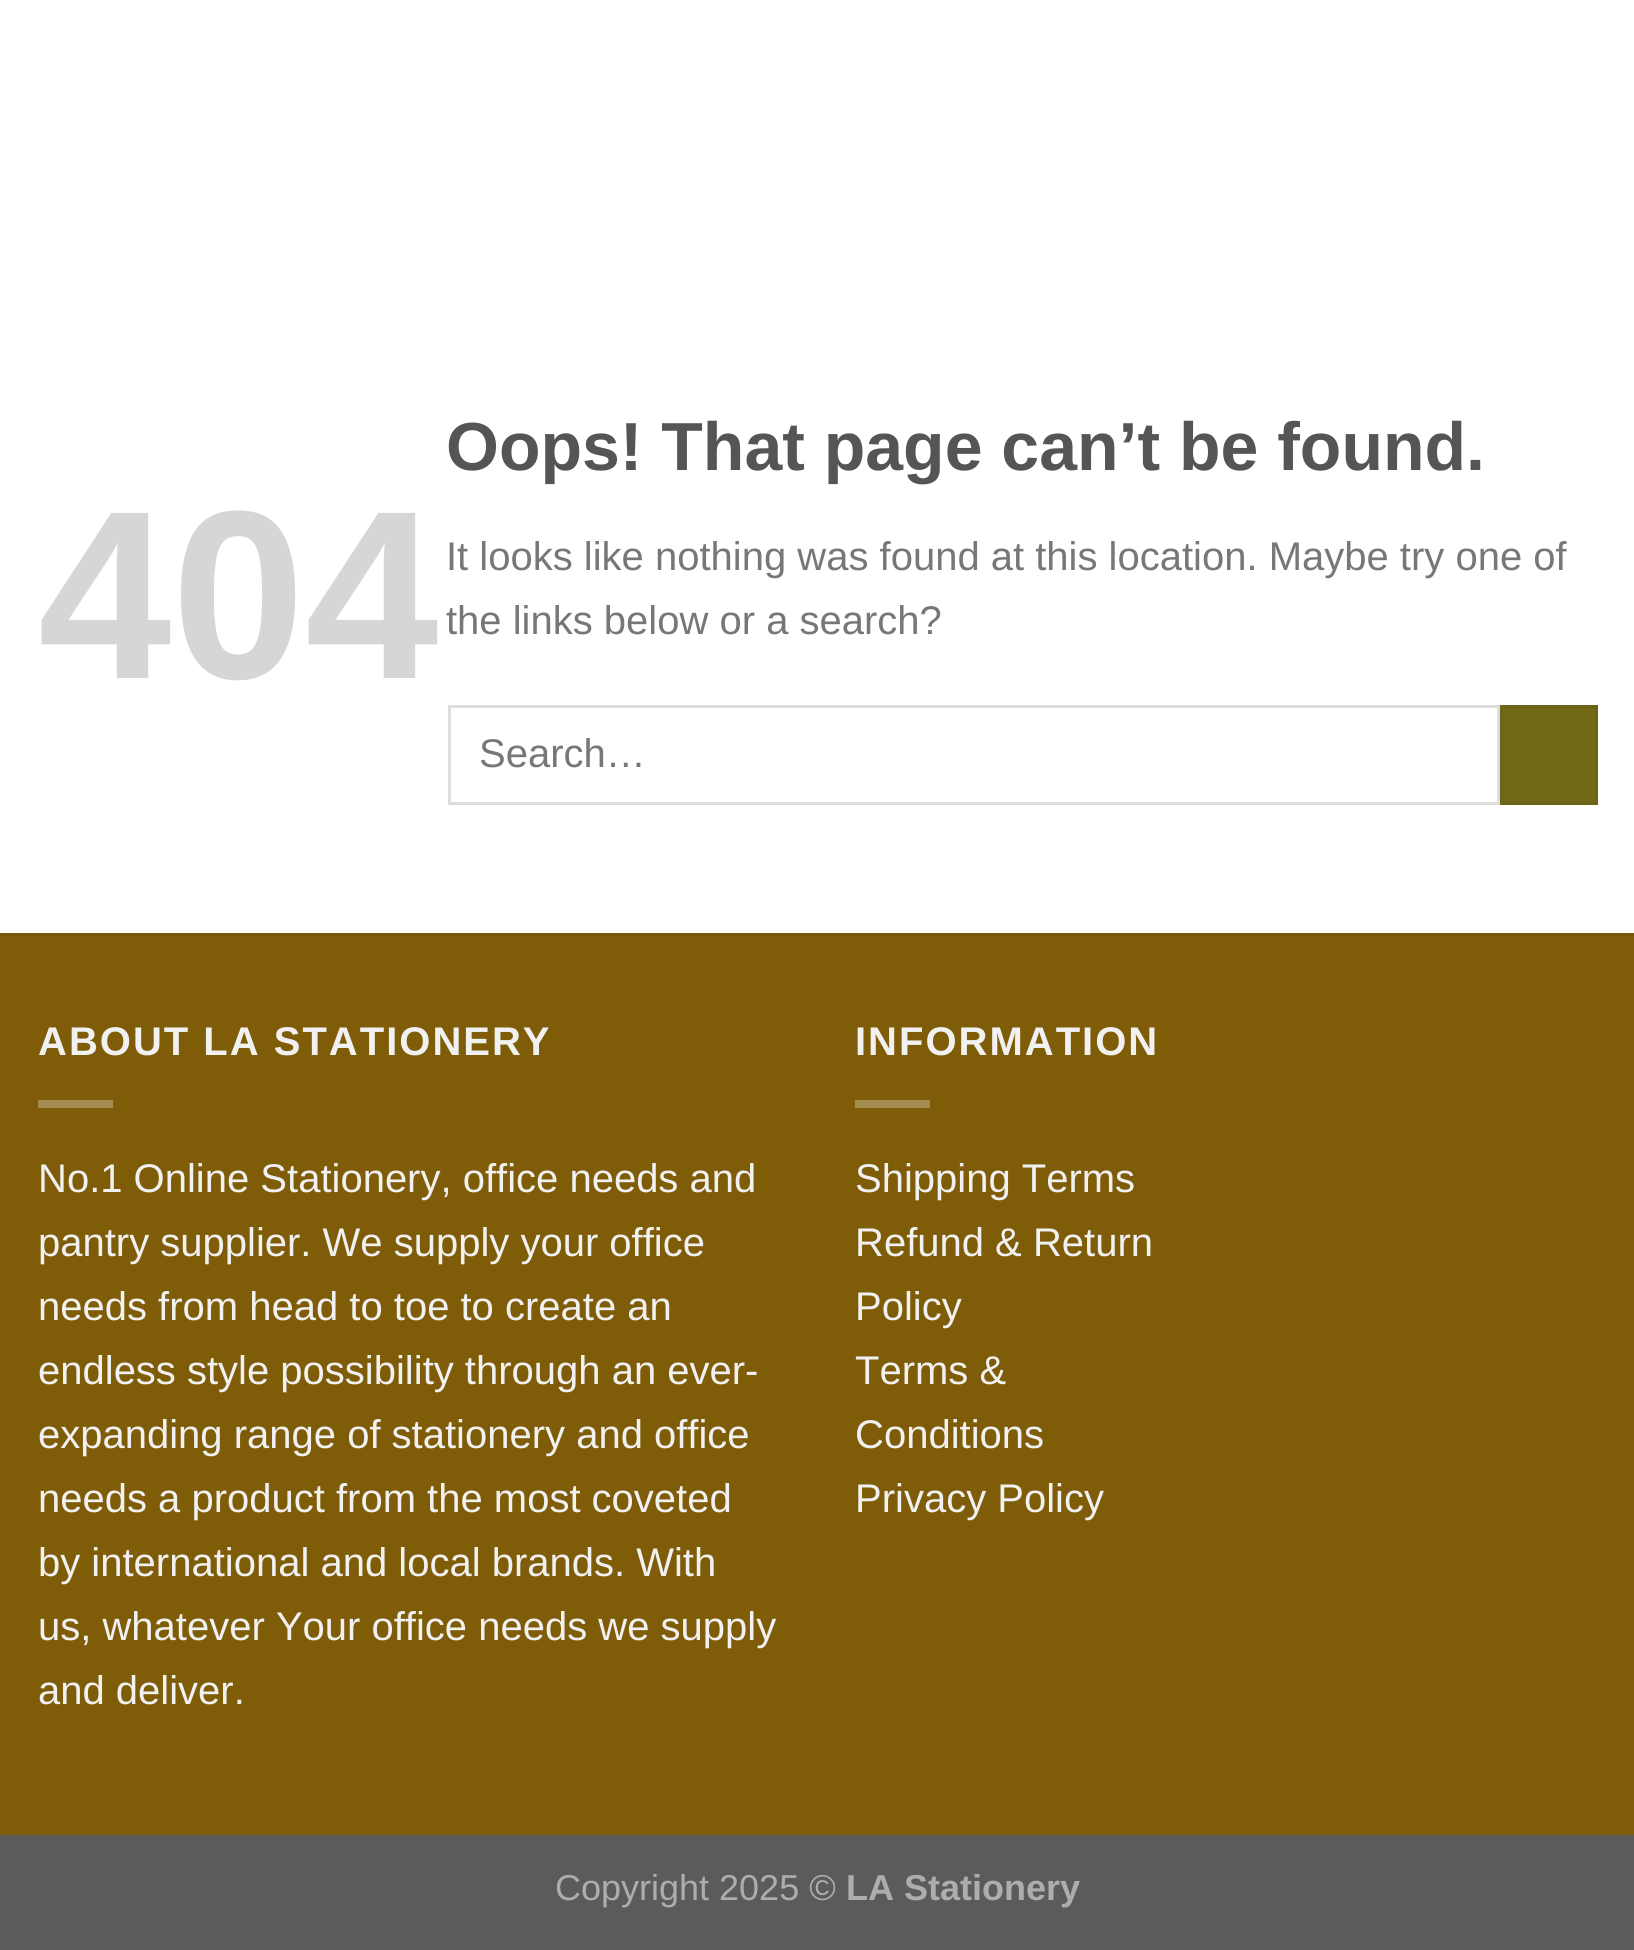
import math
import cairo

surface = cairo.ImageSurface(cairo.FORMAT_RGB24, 1634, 1950)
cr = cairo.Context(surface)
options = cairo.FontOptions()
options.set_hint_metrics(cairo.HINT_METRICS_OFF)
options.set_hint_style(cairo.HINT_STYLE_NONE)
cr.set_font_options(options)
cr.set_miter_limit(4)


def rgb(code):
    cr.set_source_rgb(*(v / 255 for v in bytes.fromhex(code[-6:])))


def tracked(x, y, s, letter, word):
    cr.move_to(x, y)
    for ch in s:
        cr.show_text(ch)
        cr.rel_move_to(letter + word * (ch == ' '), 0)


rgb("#ffffff")
cr.paint()
cr.rectangle(449.5, 706.5, 1049, 97)
rgb("#dddddd")
cr.set_line_width(3)
cr.stroke()
rgb("#726917")
cr.rectangle(1501.5, 706.5, 95, 97)
cr.fill_preserve()
rgb("#6c6416")
cr.stroke()
for x, y, w, h, color in [
    (0, 936, 1634, 899, "#7f5c08"),
    (0, 933, 1634, 3, "#795708"),
    (38, 1100, 75, 8, "#a58d52"),
    (855, 1100, 75, 8, "#a58d52"),
    (0, 1835, 1634, 115, "#5b5b5b"),
]:
    rgb(color)
    cr.rectangle(x, y, w, h)
    cr.fill()
cr.select_font_face("Liberation Sans", cairo.FONT_SLANT_NORMAL, cairo.FONT_WEIGHT_BOLD)
cr.set_font_size(240)
rgb("#d6d6d6")
cr.move_to(38, 678)
cr.show_text("404")
cr.set_font_size(68)
rgb("#555555")
cr.move_to(446, 470)
cr.show_text("Oops! That page can’t be found.")
cr.select_font_face("Liberation Sans")
cr.set_font_size(40)
rgb("#777777")
for x, y, s in [
    (446, 570, "It looks like nothing was found at this location. Maybe try one of"),
    (446, 634, "the links below or a search?"),
    (479, 767, "Search…"),
]:
    cr.move_to(x, y)
    cr.show_text(s)
cr.select_font_face("Liberation Sans", cairo.FONT_SLANT_NORMAL, cairo.FONT_WEIGHT_BOLD)
rgb("#f1f1f1")
tracked(38, 1055, "ABOUT LA STATIONERY", 2, 0)
cr.select_font_face("Liberation Sans")
for x, y, s in [
    (38, 1192, "No.1 Online Stationery, office needs and"),
    (38, 1256, "pantry supplier. We supply your office"),
    (38, 1320, "needs from head to toe to create an"),
    (38, 1384, "endless style possibility through an ever-"),
    (38, 1448, "expanding range of stationery and office"),
    (38, 1512, "needs a product from the most coveted"),
    (38, 1576, "by international and local brands. With"),
    (38, 1640, "us, whatever Your office needs we supply"),
    (38, 1704, "and deliver."),
]:
    cr.move_to(x, y)
    cr.show_text(s)
cr.select_font_face("Liberation Sans", cairo.FONT_SLANT_NORMAL, cairo.FONT_WEIGHT_BOLD)
tracked(855, 1055, "INFORMATION", 2, 0)
cr.select_font_face("Liberation Sans")
for x, y, s in [
    (855, 1192, "Shipping Terms"),
    (855, 1256, "Refund & Return"),
    (855, 1320, "Policy"),
    (855, 1384, "Terms &"),
    (855, 1448, "Conditions"),
    (855, 1512, "Privacy Policy"),
]:
    cr.move_to(x, y)
    cr.show_text(s)
cr.set_font_size(36)
rgb("#adadad")
cr.move_to(555, 1900)
cr.show_text("Copyright 2025 ©")
cr.select_font_face("Liberation Sans", cairo.FONT_SLANT_NORMAL, cairo.FONT_WEIGHT_BOLD)
cr.move_to(846, 1900)
cr.show_text("LA Stationery")
surface.write_to_png("page.png")
